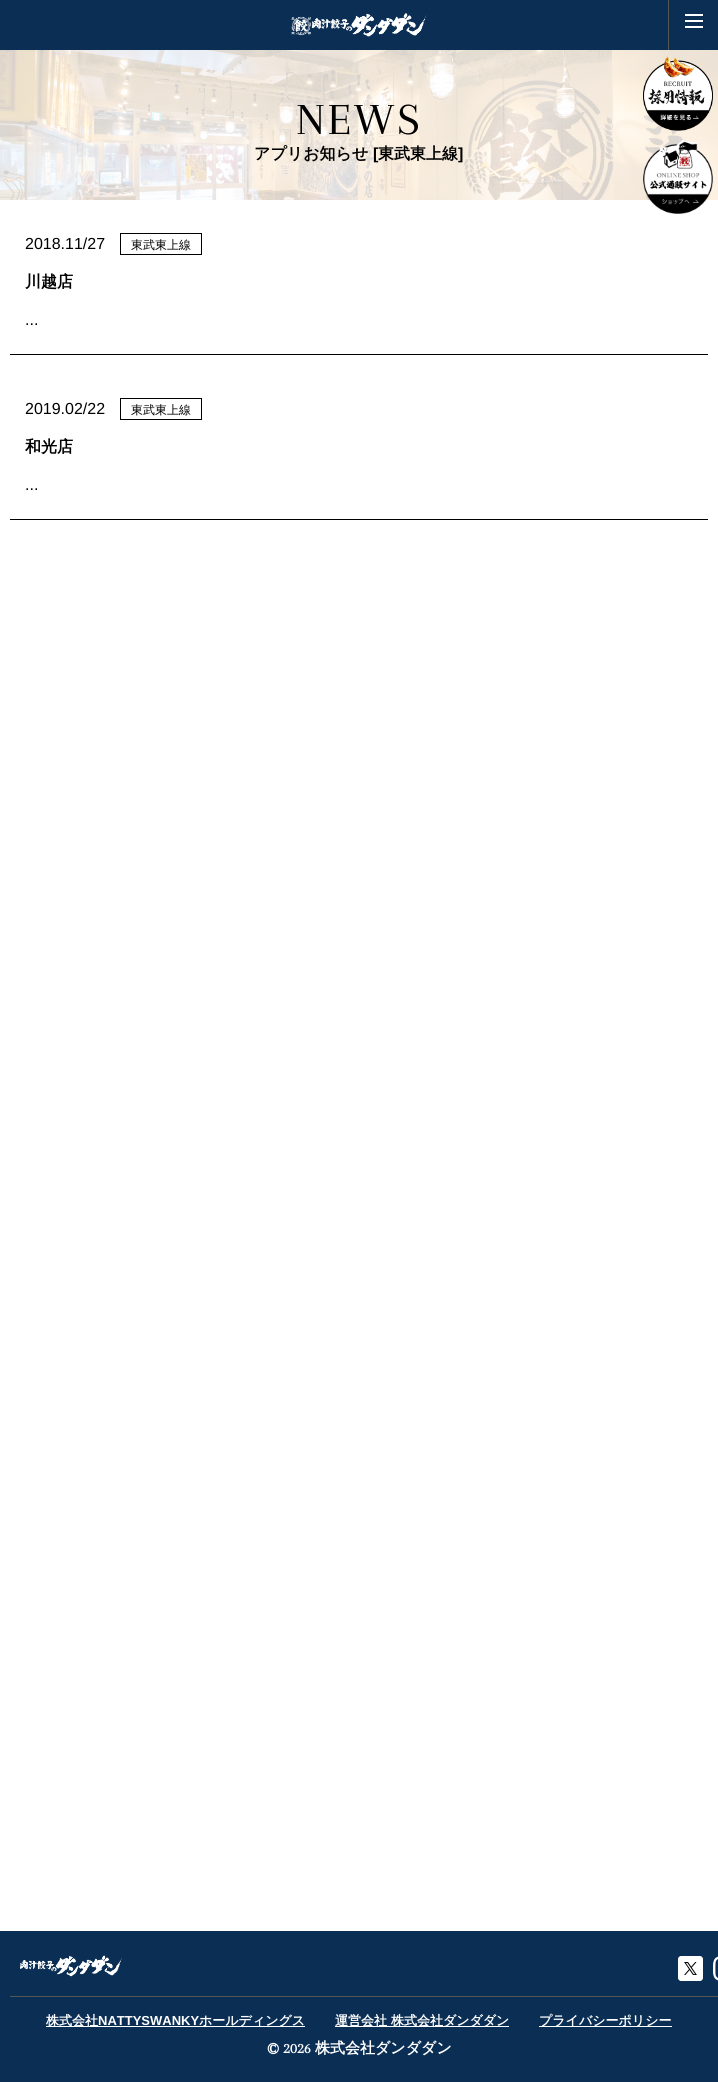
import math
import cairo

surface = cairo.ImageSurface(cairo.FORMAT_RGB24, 718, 2082)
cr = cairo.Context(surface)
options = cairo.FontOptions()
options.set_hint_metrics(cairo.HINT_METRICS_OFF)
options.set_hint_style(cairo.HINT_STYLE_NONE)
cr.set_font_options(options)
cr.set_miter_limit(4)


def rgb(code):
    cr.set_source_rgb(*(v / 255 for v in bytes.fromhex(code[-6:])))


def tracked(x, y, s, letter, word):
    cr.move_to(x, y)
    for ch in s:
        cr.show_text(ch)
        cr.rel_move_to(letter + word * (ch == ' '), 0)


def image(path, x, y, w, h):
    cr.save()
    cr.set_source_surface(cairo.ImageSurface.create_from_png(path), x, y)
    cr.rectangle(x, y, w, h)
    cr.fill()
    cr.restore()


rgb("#ffffff")
cr.paint()
rgb("#0a2e54")
cr.rectangle(0, 0, 718, 50)
cr.fill()
image("img/1.png", 291, 13, 136, 24)
for x, y, w, h, color in [
    (668, 0, 1, 50, "#555555"),
    (685, 20, 18, 2, "#ffffff"),
    (685, 14, 18, 2, "#ffffff"),
    (685, 26, 18, 2, "#ffffff"),
]:
    rgb(color)
    cr.rectangle(x, y, w, h)
    cr.fill()
image("img/4.png", 0, 50, 718, 150)
image("img/2.png", 643, 56, 70, 75)
image("img/3.png", 643, 140, 70, 74)
cr.rectangle(120.5, 233.5, 81, 21)
rgb("#000000")
cr.set_line_width(1)
cr.stroke()
cr.rectangle(10, 354, 698, 1)
cr.fill()
cr.rectangle(10, 519, 698, 1)
cr.fill()
cr.rectangle(120.5, 398.5, 81, 21)
cr.stroke()
rgb("#0a2e54")
cr.rectangle(0, 1931, 718, 151)
cr.fill()
rgb("#555555")
cr.rectangle(10, 1996, 708, 1)
cr.fill()
image("img/5.png", 20, 1955, 102, 22)
image("img/6.png", 678, 1956, 25, 25)
image("img/7.png", 713, 1956, 5, 25)
for x, y, w, h, color in [
    (46, 2026, 259, 1, "#ffffff"),
    (335, 2026, 174, 1, "#ffffff"),
    (539, 2026, 133, 1, "#ffffff"),
]:
    rgb(color)
    cr.rectangle(x, y, w, h)
    cr.fill()
cr.select_font_face("Arapey")
cr.set_font_size(46)
rgb("#000000")
tracked(296, 134, "NEWS", 2.5, 0)
cr.select_font_face("WenQuanYi Zen Hei", cairo.FONT_SLANT_NORMAL, cairo.FONT_WEIGHT_BOLD)
cr.set_font_size(16)
cr.move_to(254, 159)
cr.show_text("アプリお知らせ")
cr.select_font_face("Liberation Sans", cairo.FONT_SLANT_NORMAL, cairo.FONT_WEIGHT_BOLD)
cr.move_to(373, 159)
cr.show_text("[")
cr.select_font_face("WenQuanYi Zen Hei", cairo.FONT_SLANT_NORMAL, cairo.FONT_WEIGHT_BOLD)
cr.move_to(378, 159)
cr.show_text("東武東上線")
cr.select_font_face("Liberation Sans", cairo.FONT_SLANT_NORMAL, cairo.FONT_WEIGHT_BOLD)
cr.move_to(458, 159)
cr.show_text("]")
cr.select_font_face("Liberation Sans")
cr.move_to(25, 249)
cr.show_text("2018.11/27")
cr.select_font_face("WenQuanYi Zen Hei Medium")
cr.set_font_size(12)
cr.move_to(131, 249)
cr.show_text("東武東上線")
cr.select_font_face("WenQuanYi Zen Hei", cairo.FONT_SLANT_NORMAL, cairo.FONT_WEIGHT_BOLD)
cr.set_font_size(16)
cr.move_to(25, 287)
cr.show_text("川越店")
cr.select_font_face("Liberation Sans")
cr.move_to(25, 325)
cr.show_text("...")
cr.move_to(25, 414)
cr.show_text("2019.02/22")
cr.select_font_face("WenQuanYi Zen Hei Medium")
cr.set_font_size(12)
cr.move_to(131, 414)
cr.show_text("東武東上線")
cr.select_font_face("WenQuanYi Zen Hei", cairo.FONT_SLANT_NORMAL, cairo.FONT_WEIGHT_BOLD)
cr.set_font_size(16)
cr.move_to(25, 452)
cr.show_text("和光店")
cr.select_font_face("Liberation Sans")
cr.move_to(25, 490)
cr.show_text("...")
cr.select_font_face("WenQuanYi Zen Hei", cairo.FONT_SLANT_NORMAL, cairo.FONT_WEIGHT_BOLD)
cr.set_font_size(13)
rgb("#ffffff")
cr.move_to(46, 2025)
cr.show_text("株式会社")
cr.select_font_face("Liberation Sans", cairo.FONT_SLANT_NORMAL, cairo.FONT_WEIGHT_BOLD)
cr.move_to(98, 2025)
cr.show_text("NATTYSWANKY")
cr.select_font_face("WenQuanYi Zen Hei", cairo.FONT_SLANT_NORMAL, cairo.FONT_WEIGHT_BOLD)
for x, y, s in [
    (199, 2025, "ホールディングス"),
    (335, 2025, "運営会社 株式会社ダンダダン"),
    (539, 2025, "プライバシーポリシー"),
]:
    cr.move_to(x, y)
    cr.show_text(s)
cr.select_font_face("Arapey", cairo.FONT_SLANT_NORMAL, cairo.FONT_WEIGHT_BOLD)
cr.set_font_size(22)
cr.move_to(267, 2058)
cr.show_text("©")
cr.set_font_size(15)
cr.move_to(283, 2053)
cr.show_text("2026")
cr.select_font_face("WenQuanYi Zen Hei", cairo.FONT_SLANT_NORMAL, cairo.FONT_WEIGHT_BOLD)
cr.move_to(315, 2053)
cr.show_text("株式会社ダンダダン")
surface.write_to_png("page.png")
